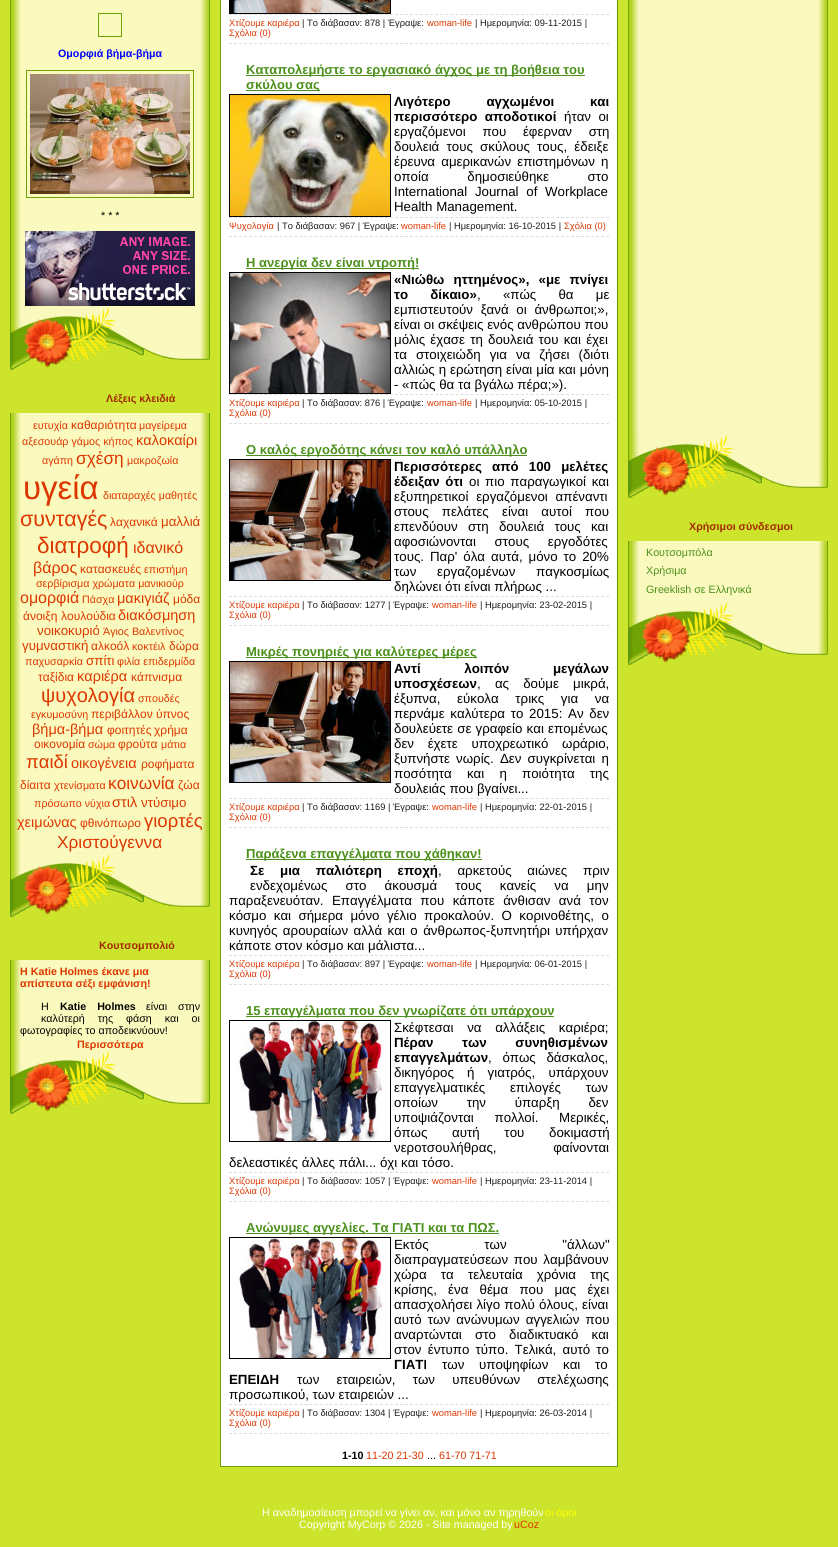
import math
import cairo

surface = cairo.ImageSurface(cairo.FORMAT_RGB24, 838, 1547)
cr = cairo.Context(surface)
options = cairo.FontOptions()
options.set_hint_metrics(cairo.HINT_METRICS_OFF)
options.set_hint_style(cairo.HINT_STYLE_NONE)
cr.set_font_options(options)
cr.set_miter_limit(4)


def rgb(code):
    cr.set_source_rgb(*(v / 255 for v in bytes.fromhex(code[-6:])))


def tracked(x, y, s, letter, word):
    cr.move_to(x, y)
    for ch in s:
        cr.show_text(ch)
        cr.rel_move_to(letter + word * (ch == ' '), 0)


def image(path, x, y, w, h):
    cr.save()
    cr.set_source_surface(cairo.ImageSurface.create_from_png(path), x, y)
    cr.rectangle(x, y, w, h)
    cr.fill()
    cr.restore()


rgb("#cce42c")
cr.paint()
image("img/1.png", 10, 0, 200, 306)
cr.rectangle(98.5, 13.5, 23, 23)
rgb("#6da104")
cr.set_line_width(1)
cr.stroke()
cr.rectangle(26.5, 70.5, 167, 127)
cr.stroke()
image("img/2.png", 30, 74, 160, 120)
image("img/3.png", 25, 231, 170, 75)
image("img/4.png", 10, 306, 200, 64)
image("img/5.png", 10, 413, 200, 440)
image("img/4.png", 10, 853, 200, 64)
image("img/6.png", 10, 960, 200, 90)
cr.rectangle(220.5, -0.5, 397, 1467)
cr.stroke()
rgb("#ffffff")
cr.rectangle(221, 0, 396, 1466)
cr.fill()
cr.rectangle(229.5, -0.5, 161, 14)
rgb("#000000")
cr.stroke()
image("img/7.png", 230, 0, 160, 13)
cr.new_path()
cr.move_to(229, 14.5)
cr.line_to(609, 14.5)
rgb("#dddddd")
cr.set_dash([3, 2.03])
cr.stroke()
cr.new_path()
cr.move_to(229, 43.5)
cr.line_to(609, 43.5)
cr.stroke()
rgb("#4b901a")
cr.rectangle(246, 75, 339, 1)
cr.fill()
cr.rectangle(246, 90, 74, 1)
cr.fill()
cr.rectangle(229.5, 94.5, 161, 122)
rgb("#000000")
cr.set_dash([])
cr.stroke()
image("img/8.png", 230, 95, 160, 121)
cr.new_path()
cr.move_to(229, 217.5)
cr.line_to(609, 217.5)
rgb("#dddddd")
cr.set_dash([3, 2.03])
cr.stroke()
cr.new_path()
cr.move_to(229, 236.5)
cr.line_to(609, 236.5)
cr.stroke()
rgb("#4b901a")
cr.rectangle(246, 268, 173, 1)
cr.fill()
cr.rectangle(229.5, 272.5, 161, 121)
rgb("#000000")
cr.set_dash([])
cr.stroke()
image("img/9.png", 230, 273, 160, 120)
cr.new_path()
cr.move_to(229, 394.5)
cr.line_to(609, 394.5)
rgb("#dddddd")
cr.set_dash([3, 2.03])
cr.stroke()
cr.new_path()
cr.move_to(229, 423.5)
cr.line_to(609, 423.5)
cr.stroke()
rgb("#4b901a")
cr.rectangle(246, 455, 281, 1)
cr.fill()
cr.rectangle(229.5, 459.5, 161, 121)
rgb("#000000")
cr.set_dash([])
cr.stroke()
image("img/10.png", 230, 460, 160, 120)
cr.new_path()
cr.move_to(229, 596.5)
cr.line_to(609, 596.5)
rgb("#dddddd")
cr.set_dash([3, 2.03])
cr.stroke()
cr.new_path()
cr.move_to(229, 625.5)
cr.line_to(609, 625.5)
cr.stroke()
rgb("#4b901a")
cr.rectangle(246, 657, 231, 1)
cr.fill()
cr.rectangle(229.5, 661.5, 161, 121)
rgb("#000000")
cr.set_dash([])
cr.stroke()
image("img/11.png", 230, 662, 160, 120)
cr.new_path()
cr.move_to(229, 798.5)
cr.line_to(609, 798.5)
rgb("#dddddd")
cr.set_dash([3, 2.03])
cr.stroke()
cr.new_path()
cr.move_to(229, 827.5)
cr.line_to(609, 827.5)
cr.stroke()
rgb("#4b901a")
cr.rectangle(246, 859, 236, 1)
cr.fill()
cr.new_path()
cr.move_to(229, 955.5)
cr.line_to(609, 955.5)
rgb("#dddddd")
cr.stroke()
cr.new_path()
cr.move_to(229, 984.5)
cr.line_to(609, 984.5)
cr.stroke()
rgb("#4b901a")
cr.rectangle(246, 1016, 308, 1)
cr.fill()
cr.rectangle(229.5, 1020.5, 161, 121)
rgb("#000000")
cr.set_dash([])
cr.stroke()
image("img/12.png", 237, 1021, 147, 120)
cr.new_path()
cr.move_to(229, 1172.5)
cr.line_to(609, 1172.5)
rgb("#dddddd")
cr.set_dash([3, 2.03])
cr.stroke()
cr.new_path()
cr.move_to(229, 1201.5)
cr.line_to(609, 1201.5)
cr.stroke()
rgb("#4b901a")
cr.rectangle(246, 1233, 253, 1)
cr.fill()
cr.rectangle(229.5, 1237.5, 161, 121)
rgb("#000000")
cr.set_dash([])
cr.stroke()
image("img/12.png", 237, 1238, 147, 120)
cr.new_path()
cr.move_to(229, 1404.5)
cr.line_to(609, 1404.5)
rgb("#dddddd")
cr.set_dash([3, 2.03])
cr.stroke()
cr.new_path()
cr.move_to(229, 1433.5)
cr.line_to(609, 1433.5)
cr.stroke()
image("img/13.png", 628, 0, 200, 434)
image("img/4.png", 628, 434, 200, 64)
image("img/14.png", 628, 541, 200, 60)
image("img/4.png", 628, 601, 200, 64)
cr.select_font_face("Liberation Sans", cairo.FONT_SLANT_NORMAL, cairo.FONT_WEIGHT_BOLD)
cr.set_font_size(10.7)
rgb("#0000ff")
cr.move_to(58, 57)
cr.show_text("Ομορφιά βήμα-βήμα")
cr.select_font_face("Liberation Sans")
rgb("#000000")
cr.move_to(101, 219)
cr.show_text("* * *")
cr.select_font_face("Liberation Sans", cairo.FONT_SLANT_NORMAL, cairo.FONT_WEIGHT_BOLD)
rgb("#a42900")
cr.move_to(106, 402)
cr.show_text("Λέξεις κλειδιά")
cr.select_font_face("Liberation Sans")
rgb("#dc3700")
cr.move_to(33, 429)
cr.show_text("ευτυχία")
cr.set_font_size(12)
cr.move_to(71, 429)
cr.show_text("καθαριότητα")
cr.set_font_size(10.7)
cr.move_to(139, 429)
cr.show_text("μαγείρεμα")
cr.move_to(22, 445)
cr.show_text("αξεσουάρ γάμος κήπος")
cr.set_font_size(14.5)
cr.move_to(136, 445)
cr.show_text("καλοκαίρι")
cr.set_font_size(10.7)
cr.move_to(42, 464)
cr.show_text("αγάπη")
cr.set_font_size(17.25)
cr.move_to(76, 464)
cr.show_text("σχέση")
cr.set_font_size(10.7)
cr.move_to(127, 464)
cr.show_text("μακροζωία")
cr.set_font_size(33)
cr.move_to(23, 499)
cr.show_text("υγεία")
cr.set_font_size(10.7)
cr.move_to(103, 499)
cr.show_text("διαταραχές μαθητές")
cr.set_font_size(21.5)
cr.move_to(20, 526)
cr.show_text("συνταγές")
cr.set_font_size(12)
cr.move_to(110, 526)
cr.show_text("λαχανικά")
cr.set_font_size(13.3)
cr.move_to(161, 526)
cr.show_text("μαλλιά")
cr.set_font_size(22.5)
cr.move_to(37, 553)
cr.show_text("διατροφή")
cr.set_font_size(16)
cr.move_to(133, 553)
cr.show_text("ιδανικό")
cr.move_to(33, 573)
cr.show_text("βάρος")
cr.set_font_size(12)
cr.move_to(80, 573)
cr.show_text("κατασκευές")
cr.set_font_size(10.7)
cr.move_to(144, 573)
cr.show_text("επιστήμη")
cr.move_to(36, 587)
cr.show_text("σερβίρισμα χρώματα μανικιούρ")
cr.set_font_size(16)
cr.move_to(20, 603)
cr.show_text("ομορφιά")
cr.set_font_size(10.7)
cr.move_to(82, 603)
cr.show_text("Πάσχα")
cr.set_font_size(14.5)
cr.move_to(117, 603)
cr.show_text("μακιγιάζ")
cr.set_font_size(12)
for x, y, s in [
    (173, 603, "μόδα"),
    (23, 620, "άνοιξη"),
    (61, 620, "λουλούδια"),
]:
    cr.move_to(x, y)
    cr.show_text(s)
cr.set_font_size(14.5)
cr.move_to(118, 620)
cr.show_text("διακόσμηση")
cr.set_font_size(13.3)
cr.move_to(37, 635)
cr.show_text("νοικοκυριό")
cr.set_font_size(10.7)
cr.move_to(103, 635)
cr.show_text("Άγιος Βαλεντίνος")
cr.set_font_size(13.3)
cr.move_to(22, 650)
cr.show_text("γυμναστική")
cr.set_font_size(12)
cr.move_to(91, 650)
cr.show_text("αλκοόλ")
cr.set_font_size(10.7)
cr.move_to(132, 650)
cr.show_text("κοκτέιλ")
cr.set_font_size(12)
cr.move_to(169, 650)
cr.show_text("δώρα")
cr.set_font_size(10.7)
cr.move_to(25, 665)
cr.show_text("παχυσαρκία")
cr.set_font_size(13.3)
cr.move_to(86, 665)
cr.show_text("σπίτι")
cr.set_font_size(10.7)
cr.move_to(117, 665)
cr.show_text("φιλία επιδερμίδα")
cr.set_font_size(12)
cr.move_to(38, 681)
cr.show_text("ταξίδια")
cr.set_font_size(14.5)
cr.move_to(77, 681)
cr.show_text("καριέρα")
cr.set_font_size(12)
cr.move_to(131, 681)
cr.show_text("κάπνισμα")
cr.set_font_size(20)
cr.move_to(41, 702)
cr.show_text("ψυχολογία")
cr.set_font_size(10.7)
cr.move_to(138, 702)
cr.show_text("σπουδές")
cr.move_to(31, 718)
cr.show_text("εγκυμοσύνη")
cr.set_font_size(12)
cr.move_to(91, 718)
cr.show_text("περιβάλλον")
cr.move_to(156, 718)
cr.show_text("ύπνος")
cr.set_font_size(14.5)
cr.move_to(32, 734)
cr.show_text("βήμα-βήμα")
cr.set_font_size(12)
for x, y, s in [
    (107, 734, "φοιτητές"),
    (154, 734, "χρήμα"),
    (34, 748, "οικονομία"),
]:
    cr.move_to(x, y)
    cr.show_text(s)
cr.set_font_size(10.7)
cr.move_to(88, 748)
cr.show_text("σώμα")
cr.set_font_size(12)
cr.move_to(118, 748)
cr.show_text("φρούτα")
cr.set_font_size(10.7)
cr.move_to(161, 748)
cr.show_text("μάτια")
cr.set_font_size(18.5)
cr.move_to(26, 768)
cr.show_text("παιδί")
cr.set_font_size(14.5)
cr.move_to(71, 768)
cr.show_text("οικογένεια")
cr.set_font_size(12)
cr.move_to(141, 768)
cr.show_text("ροφήματα")
cr.move_to(20, 789)
cr.show_text("δίαιτα")
cr.set_font_size(10.7)
cr.move_to(54, 789)
cr.show_text("χτενίσματα")
cr.set_font_size(17.25)
cr.move_to(108, 789)
cr.show_text("κοινωνία")
cr.set_font_size(12)
cr.move_to(178, 789)
cr.show_text("ζώα")
cr.set_font_size(10.7)
cr.move_to(34, 807)
cr.show_text("πρόσωπο νύχια")
cr.set_font_size(14.5)
cr.move_to(112, 807)
cr.show_text("στιλ")
cr.set_font_size(13.3)
cr.move_to(141, 807)
cr.show_text("ντύσιμο")
cr.set_font_size(14.5)
cr.move_to(17, 827)
cr.show_text("χειμώνας")
cr.set_font_size(12)
cr.move_to(80, 827)
cr.show_text("φθινόπωρο")
cr.set_font_size(18.5)
cr.move_to(144, 827)
cr.show_text("γιορτές")
cr.set_font_size(17.25)
cr.move_to(57, 848)
cr.show_text("Χριστούγεννα")
cr.select_font_face("Liberation Sans", cairo.FONT_SLANT_NORMAL, cairo.FONT_WEIGHT_BOLD)
cr.set_font_size(10.7)
rgb("#a42900")
cr.move_to(99, 949)
cr.show_text("Κουτσομπολιό")
rgb("#dc3700")
cr.move_to(20, 975)
cr.show_text("Η Katie Holmes έκανε μια")
cr.move_to(20, 987)
cr.show_text("απίστευτα σέξι εμφάνιση!")
cr.select_font_face("Liberation Sans")
rgb("#000000")
cr.move_to(41, 1010)
cr.show_text("Η")
cr.select_font_face("Liberation Sans", cairo.FONT_SLANT_NORMAL, cairo.FONT_WEIGHT_BOLD)
tracked(60, 1010, "Katie Holmes", 0, 8)
cr.select_font_face("Liberation Sans")
tracked(146, 1010, "είναι στην", 0, 8)
tracked(41, 1022, "καλύτερή της φάση και οι", 0, 10)
cr.move_to(20, 1034)
cr.show_text("φωτογραφίες το αποδεικνύουν!")
cr.select_font_face("Liberation Sans", cairo.FONT_SLANT_NORMAL, cairo.FONT_WEIGHT_BOLD)
rgb("#dc3700")
cr.move_to(77, 1048)
cr.show_text("Περισσότερα")
image("img/4.png", 10, 1050, 200, 64)
cr.select_font_face("Liberation Sans")
cr.set_font_size(9.3)
cr.move_to(229, 26)
cr.show_text("Χτίζουμε καριέρα")
rgb("#1a1a1a")
cr.move_to(302, 26)
cr.show_text("| Το διάβασαν: 878 | Έγραψε:")
rgb("#dc3700")
cr.move_to(427, 26)
cr.show_text("woman-life")
rgb("#1a1a1a")
cr.move_to(475, 26)
cr.show_text("| Ημερομηνία: 09-11-2015 |")
rgb("#dc3700")
cr.move_to(229, 36)
cr.show_text("Σχόλια (0)")
cr.select_font_face("Liberation Sans", cairo.FONT_SLANT_NORMAL, cairo.FONT_WEIGHT_BOLD)
cr.set_font_size(13)
rgb("#4b901a")
cr.move_to(246, 74)
cr.show_text("Καταπολεμήστε το εργασιακό άγχος με τη βοήθεια του")
cr.move_to(246, 89)
cr.show_text("σκύλου σας")
cr.set_font_size(13.3)
rgb("#000000")
tracked(394, 106, "Λιγότερο αγχωμένοι και", 0, 32)
tracked(394, 121, "περισσότερο αποδοτικοί", 0, 3.75)
cr.select_font_face("Liberation Sans")
tracked(564, 121, "ήταν οι", 0, 3.75)
tracked(394, 136, "εργαζόμενοι που έφερναν στη", 0, 13)
tracked(394, 151, "δουλειά τους σκύλους τους, έδειξε", 0, 3.5)
tracked(394, 166, "έρευνα αμερικανών επιστημόνων η", 0, 2.5)
tracked(394, 181, "οποία δημοσιεύθηκε στο", 0, 35)
tracked(394, 196, "International Journal of Workplace", 0, 4)
cr.move_to(394, 211)
cr.show_text("Health Management.")
cr.set_font_size(9.3)
rgb("#dc3700")
cr.move_to(229, 229)
cr.show_text("Ψυχολογία")
rgb("#1a1a1a")
cr.move_to(277, 229)
cr.show_text("| Το διάβασαν: 967 | Έγραψε:")
rgb("#dc3700")
cr.move_to(401, 229)
cr.show_text("woman-life")
rgb("#1a1a1a")
cr.move_to(449, 229)
cr.show_text("| Ημερομηνία: 16-10-2015 |")
rgb("#dc3700")
cr.move_to(564, 229)
cr.show_text("Σχόλια (0)")
cr.select_font_face("Liberation Sans", cairo.FONT_SLANT_NORMAL, cairo.FONT_WEIGHT_BOLD)
cr.set_font_size(13)
rgb("#4b901a")
cr.move_to(246, 267)
cr.show_text("H ανεργία δεν είναι ντροπή!")
cr.set_font_size(13.3)
rgb("#000000")
tracked(394, 284, "«Νιώθω ηττημένος», «με πνίγει", 0, 5.5)
tracked(394, 299, "το δίκαιο»", 0, 18.5)
cr.select_font_face("Liberation Sans")
tracked(477, 299, ", «πώς θα με", 0, 18.5)
tracked(394, 314, "εμπιστευτούν ξανά οι άνθρωποι;»,", 0, 4)
cr.move_to(394, 329)
cr.show_text("είναι οι σκέψεις ενός ανθρώπου που")
tracked(394, 344, "μόλις έχασε τη δουλειά του και έχει", 0, 1.5)
tracked(394, 359, "τα στοιχειώδη για να ζήσει (διότι", 0, 5.25)
tracked(394, 374, "αλλιώς η ερώτηση είναι μία και μόνη", 0, 0.25)
cr.move_to(394, 389)
cr.show_text("- «πώς θα τα βγάλω πέρα;»).")
cr.set_font_size(9.3)
rgb("#dc3700")
cr.move_to(229, 406)
cr.show_text("Χτίζουμε καριέρα")
rgb("#1a1a1a")
cr.move_to(302, 406)
cr.show_text("| Το διάβασαν: 876 | Έγραψε:")
rgb("#dc3700")
cr.move_to(427, 406)
cr.show_text("woman-life")
rgb("#1a1a1a")
cr.move_to(475, 406)
cr.show_text("| Ημερομηνία: 05-10-2015 |")
rgb("#dc3700")
cr.move_to(229, 416)
cr.show_text("Σχόλια (0)")
cr.select_font_face("Liberation Sans", cairo.FONT_SLANT_NORMAL, cairo.FONT_WEIGHT_BOLD)
cr.set_font_size(13)
rgb("#4b901a")
cr.move_to(246, 454)
cr.show_text("O καλός εργοδότης κάνει τον καλό υπάλληλο")
cr.set_font_size(13.3)
rgb("#000000")
tracked(394, 471, "Περισσότερες από 100 μελέτες", 0, 6.5)
tracked(394, 486, "έδειξαν ότι", 0, 2)
cr.select_font_face("Liberation Sans")
tracked(469, 486, "οι πιο παραγωγικοί και", 0, 2)
tracked(394, 501, "εξυπηρετικοί εργαζόμενοι απέναντι", 0, 4)
tracked(394, 516, "στους πελάτες είναι αυτοί που", 0, 9.5)
tracked(394, 531, "επενδύουν στη δουλειά τους και", 0, 6.5)
tracked(394, 546, "αφοσιώνονται στους εργοδότες", 0, 15)
tracked(394, 561, "τους. Παρ' όλα αυτά, μόνο το 20%", 0, 2.25)
tracked(394, 576, "των εργαζομένων παγκοσμίως", 0, 17)
cr.move_to(394, 591)
cr.show_text("δηλώνει ότι είναι πλήρως ...")
cr.set_font_size(9.3)
rgb("#dc3700")
cr.move_to(229, 608)
cr.show_text("Χτίζουμε καριέρα")
rgb("#1a1a1a")
cr.move_to(302, 608)
cr.show_text("| Το διάβασαν: 1277 | Έγραψε:")
rgb("#dc3700")
cr.move_to(432, 608)
cr.show_text("woman-life")
rgb("#1a1a1a")
cr.move_to(480, 608)
cr.show_text("| Ημερομηνία: 23-02-2015 |")
rgb("#dc3700")
cr.move_to(229, 618)
cr.show_text("Σχόλια (0)")
cr.select_font_face("Liberation Sans", cairo.FONT_SLANT_NORMAL, cairo.FONT_WEIGHT_BOLD)
cr.set_font_size(13)
rgb("#4b901a")
cr.move_to(246, 656)
cr.show_text("Μικρές πονηριές για καλύτερες μέρες")
cr.set_font_size(13.3)
rgb("#000000")
tracked(394, 673, "Αντί λοιπόν μεγάλων", 0, 40)
cr.move_to(394, 688)
cr.show_text("υποσχέσεων")
cr.select_font_face("Liberation Sans")
tracked(477, 688, ", ας δούμε μικρά,", 0, 10.5)
tracked(394, 703, "έξυπνα, εύκολα τρικς για να", 0, 13)
tracked(394, 718, "περνάμε καλύτερα το 2015: Αν δεν", 0, 2)
tracked(394, 733, "δουλεύετε σε γραφείο και επομένως", 0, 0.5)
tracked(394, 748, "δεν έχετε υποχρεωτικό ωράριο,", 0, 10)
tracked(394, 763, "ξυπνήστε νωρίς. Δεν συγκρίνεται η", 0, 2.5)
tracked(394, 778, "ποσότητα και η ποιότητα της", 0, 11.5)
cr.move_to(394, 793)
cr.show_text("δουλειάς που βγαίνει...")
cr.set_font_size(9.3)
rgb("#dc3700")
cr.move_to(229, 810)
cr.show_text("Χτίζουμε καριέρα")
rgb("#1a1a1a")
cr.move_to(302, 810)
cr.show_text("| Το διάβασαν: 1169 | Έγραψε:")
rgb("#dc3700")
cr.move_to(432, 810)
cr.show_text("woman-life")
rgb("#1a1a1a")
cr.move_to(480, 810)
cr.show_text("| Ημερομηνία: 22-01-2015 |")
rgb("#dc3700")
cr.move_to(229, 820)
cr.show_text("Σχόλια (0)")
cr.select_font_face("Liberation Sans", cairo.FONT_SLANT_NORMAL, cairo.FONT_WEIGHT_BOLD)
cr.set_font_size(13)
rgb("#4b901a")
cr.move_to(246, 858)
cr.show_text("Παράξενα επαγγέλματα που χάθηκαν!")
cr.set_font_size(13.3)
rgb("#000000")
tracked(250, 875, "Σε μια παλιότερη εποχή", 0, 12)
cr.select_font_face("Liberation Sans")
tracked(438, 875, ", αρκετούς αιώνες πριν", 0, 12)
tracked(250, 890, "ενδεχομένως στο άκουσμά τους κανείς να μην", 0, 14.5)
tracked(229, 905, "παραξενευόταν. Επαγγέλματα που κάποτε άνθισαν ανά τον", 0, 4.75)
tracked(229, 920, "κόσμο και σήμερα μόνο γέλιο προκαλούν. Ο κορινοθέτης, ο", 0, 3.75)
tracked(229, 935, "κυνηγός αρουραίων αλλά και ο άνθρωπος-ξυπνητήρι υπήρχαν", 0, 1.75)
cr.move_to(229, 950)
cr.show_text("κάποτε στον κόσμο και μάλιστα...")
cr.set_font_size(9.3)
rgb("#dc3700")
cr.move_to(229, 967)
cr.show_text("Χτίζουμε καριέρα")
rgb("#1a1a1a")
cr.move_to(302, 967)
cr.show_text("| Το διάβασαν: 897 | Έγραψε:")
rgb("#dc3700")
cr.move_to(427, 967)
cr.show_text("woman-life")
rgb("#1a1a1a")
cr.move_to(475, 967)
cr.show_text("| Ημερομηνία: 06-01-2015 |")
rgb("#dc3700")
cr.move_to(229, 977)
cr.show_text("Σχόλια (0)")
cr.select_font_face("Liberation Sans", cairo.FONT_SLANT_NORMAL, cairo.FONT_WEIGHT_BOLD)
cr.set_font_size(13)
rgb("#4b901a")
cr.move_to(246, 1015)
cr.show_text("15 επαγγέλματα που δεν γνωρίζατε ότι υπάρχουν")
cr.select_font_face("Liberation Sans")
cr.set_font_size(13.3)
rgb("#000000")
tracked(394, 1032, "Σκέφτεσαι να αλλάξεις καριέρα;", 0, 10)
cr.select_font_face("Liberation Sans", cairo.FONT_SLANT_NORMAL, cairo.FONT_WEIGHT_BOLD)
tracked(394, 1047, "Πέραν των συνηθισμένων", 0, 25)
cr.move_to(394, 1062)
cr.show_text("επαγγελμάτων")
cr.select_font_face("Liberation Sans")
tracked(488, 1062, ", όπως δάσκαλος,", 0, 7)
tracked(394, 1077, "δικηγόρος ή γιατρός, υπάρχουν", 0, 9.5)
tracked(394, 1092, "επαγγελματικές επιλογές των", 0, 21)
tracked(394, 1107, "οποίων την ύπαρξη δεν", 0, 25)
tracked(394, 1122, "υποψιάζονται πολλοί. Μερικές,", 0, 17)
tracked(394, 1137, "όπως αυτή του δοκιμαστή", 0, 21)
tracked(394, 1152, "νεροτσουλήθρας, φαίνονται", 0, 53)
cr.move_to(229, 1167)
cr.show_text("δελεαστικές άλλες πάλι... όχι και τόσο.")
cr.set_font_size(9.3)
rgb("#dc3700")
cr.move_to(229, 1184)
cr.show_text("Χτίζουμε καριέρα")
rgb("#1a1a1a")
cr.move_to(302, 1184)
cr.show_text("| Το διάβασαν: 1057 | Έγραψε:")
rgb("#dc3700")
cr.move_to(432, 1184)
cr.show_text("woman-life")
rgb("#1a1a1a")
cr.move_to(480, 1184)
cr.show_text("| Ημερομηνία: 23-11-2014 |")
rgb("#dc3700")
cr.move_to(229, 1194)
cr.show_text("Σχόλια (0)")
cr.select_font_face("Liberation Sans", cairo.FONT_SLANT_NORMAL, cairo.FONT_WEIGHT_BOLD)
cr.set_font_size(13)
rgb("#4b901a")
cr.move_to(246, 1232)
cr.show_text("Ανώνυμες αγγελίες. Τα ΓΙΑΤΙ και τα ΠΩΣ.")
cr.select_font_face("Liberation Sans")
cr.set_font_size(13.3)
rgb("#000000")
tracked(394, 1249, "Εκτός των \"άλλων\"", 0, 52)
tracked(394, 1264, "διαπραγματεύσεων που λαμβάνουν", 0, 2)
tracked(394, 1279, "χώρα τα τελευταία χρόνια της", 0, 10.5)
tracked(394, 1294, "κρίσης, ένα θέμα που μας έχει", 0, 7.5)
tracked(394, 1309, "απασχολήσει λίγο πολύ όλους, είναι", 0, 0.5)
tracked(394, 1324, "αυτό των ανώνυμων αγγελιών που", 0, 2.5)
tracked(394, 1339, "αναρτώνται στο διαδικτυακό και", 0, 9.5)
tracked(394, 1354, "στον έντυπο τύπο. Τελικά, αυτό το", 0, 2.5)
cr.select_font_face("Liberation Sans", cairo.FONT_SLANT_NORMAL, cairo.FONT_WEIGHT_BOLD)
cr.move_to(394, 1369)
cr.show_text("ΓΙΑΤΙ")
cr.select_font_face("Liberation Sans")
tracked(442, 1369, "των υποψηφίων και το", 0, 11)
cr.select_font_face("Liberation Sans", cairo.FONT_SLANT_NORMAL, cairo.FONT_WEIGHT_BOLD)
cr.move_to(229, 1384)
cr.show_text("ΕΠΕΙΔΗ")
cr.select_font_face("Liberation Sans")
tracked(297, 1384, "των εταιρειών, των υπευθύνων στελέχωσης", 0, 13.5)
cr.move_to(229, 1399)
cr.show_text("προσωπικού, των εταιρειών ...")
cr.set_font_size(9.3)
rgb("#dc3700")
cr.move_to(229, 1416)
cr.show_text("Χτίζουμε καριέρα")
rgb("#1a1a1a")
cr.move_to(302, 1416)
cr.show_text("| Το διάβασαν: 1304 | Έγραψε:")
rgb("#dc3700")
cr.move_to(432, 1416)
cr.show_text("woman-life")
rgb("#1a1a1a")
cr.move_to(480, 1416)
cr.show_text("| Ημερομηνία: 26-03-2014 |")
rgb("#dc3700")
cr.move_to(229, 1426)
cr.show_text("Σχόλια (0)")
cr.select_font_face("Liberation Sans", cairo.FONT_SLANT_NORMAL, cairo.FONT_WEIGHT_BOLD)
cr.set_font_size(10.7)
rgb("#000000")
cr.move_to(342, 1459)
cr.show_text("1-10")
cr.select_font_face("Liberation Sans")
rgb("#dc3700")
cr.move_to(366, 1459)
cr.show_text("11-20 21-30")
rgb("#000000")
cr.move_to(427, 1459)
cr.show_text("...")
rgb("#dc3700")
cr.move_to(439, 1459)
cr.show_text("61-70 71-71")
cr.select_font_face("Liberation Sans", cairo.FONT_SLANT_NORMAL, cairo.FONT_WEIGHT_BOLD)
rgb("#a42900")
cr.move_to(689, 530)
cr.show_text("Χρήσιμοι σύνδεσμοι")
cr.select_font_face("Liberation Sans")
rgb("#4b901a")
for x, y, s in [
    (646, 556, "Κουτσομπόλα"),
    (646, 574, "Χρήσιμα"),
    (646, 593, "Greeklish σε Ελληνικά"),
]:
    cr.move_to(x, y)
    cr.show_text(s)
rgb("#ffffff")
cr.move_to(262, 1516)
cr.show_text("Η αναδημοσίευση μπορεί να γίνει αν, και μόνο αν τηρηθούν")
rgb("#ffff00")
cr.move_to(545, 1516)
cr.show_text("οι όροι")
rgb("#ffffff")
cr.move_to(299, 1528)
cr.show_text("Copyright MyCorp © 2026 - Site managed by")
rgb("#dc3700")
cr.move_to(514, 1528)
cr.show_text("uCoz")
surface.write_to_png("page.png")
